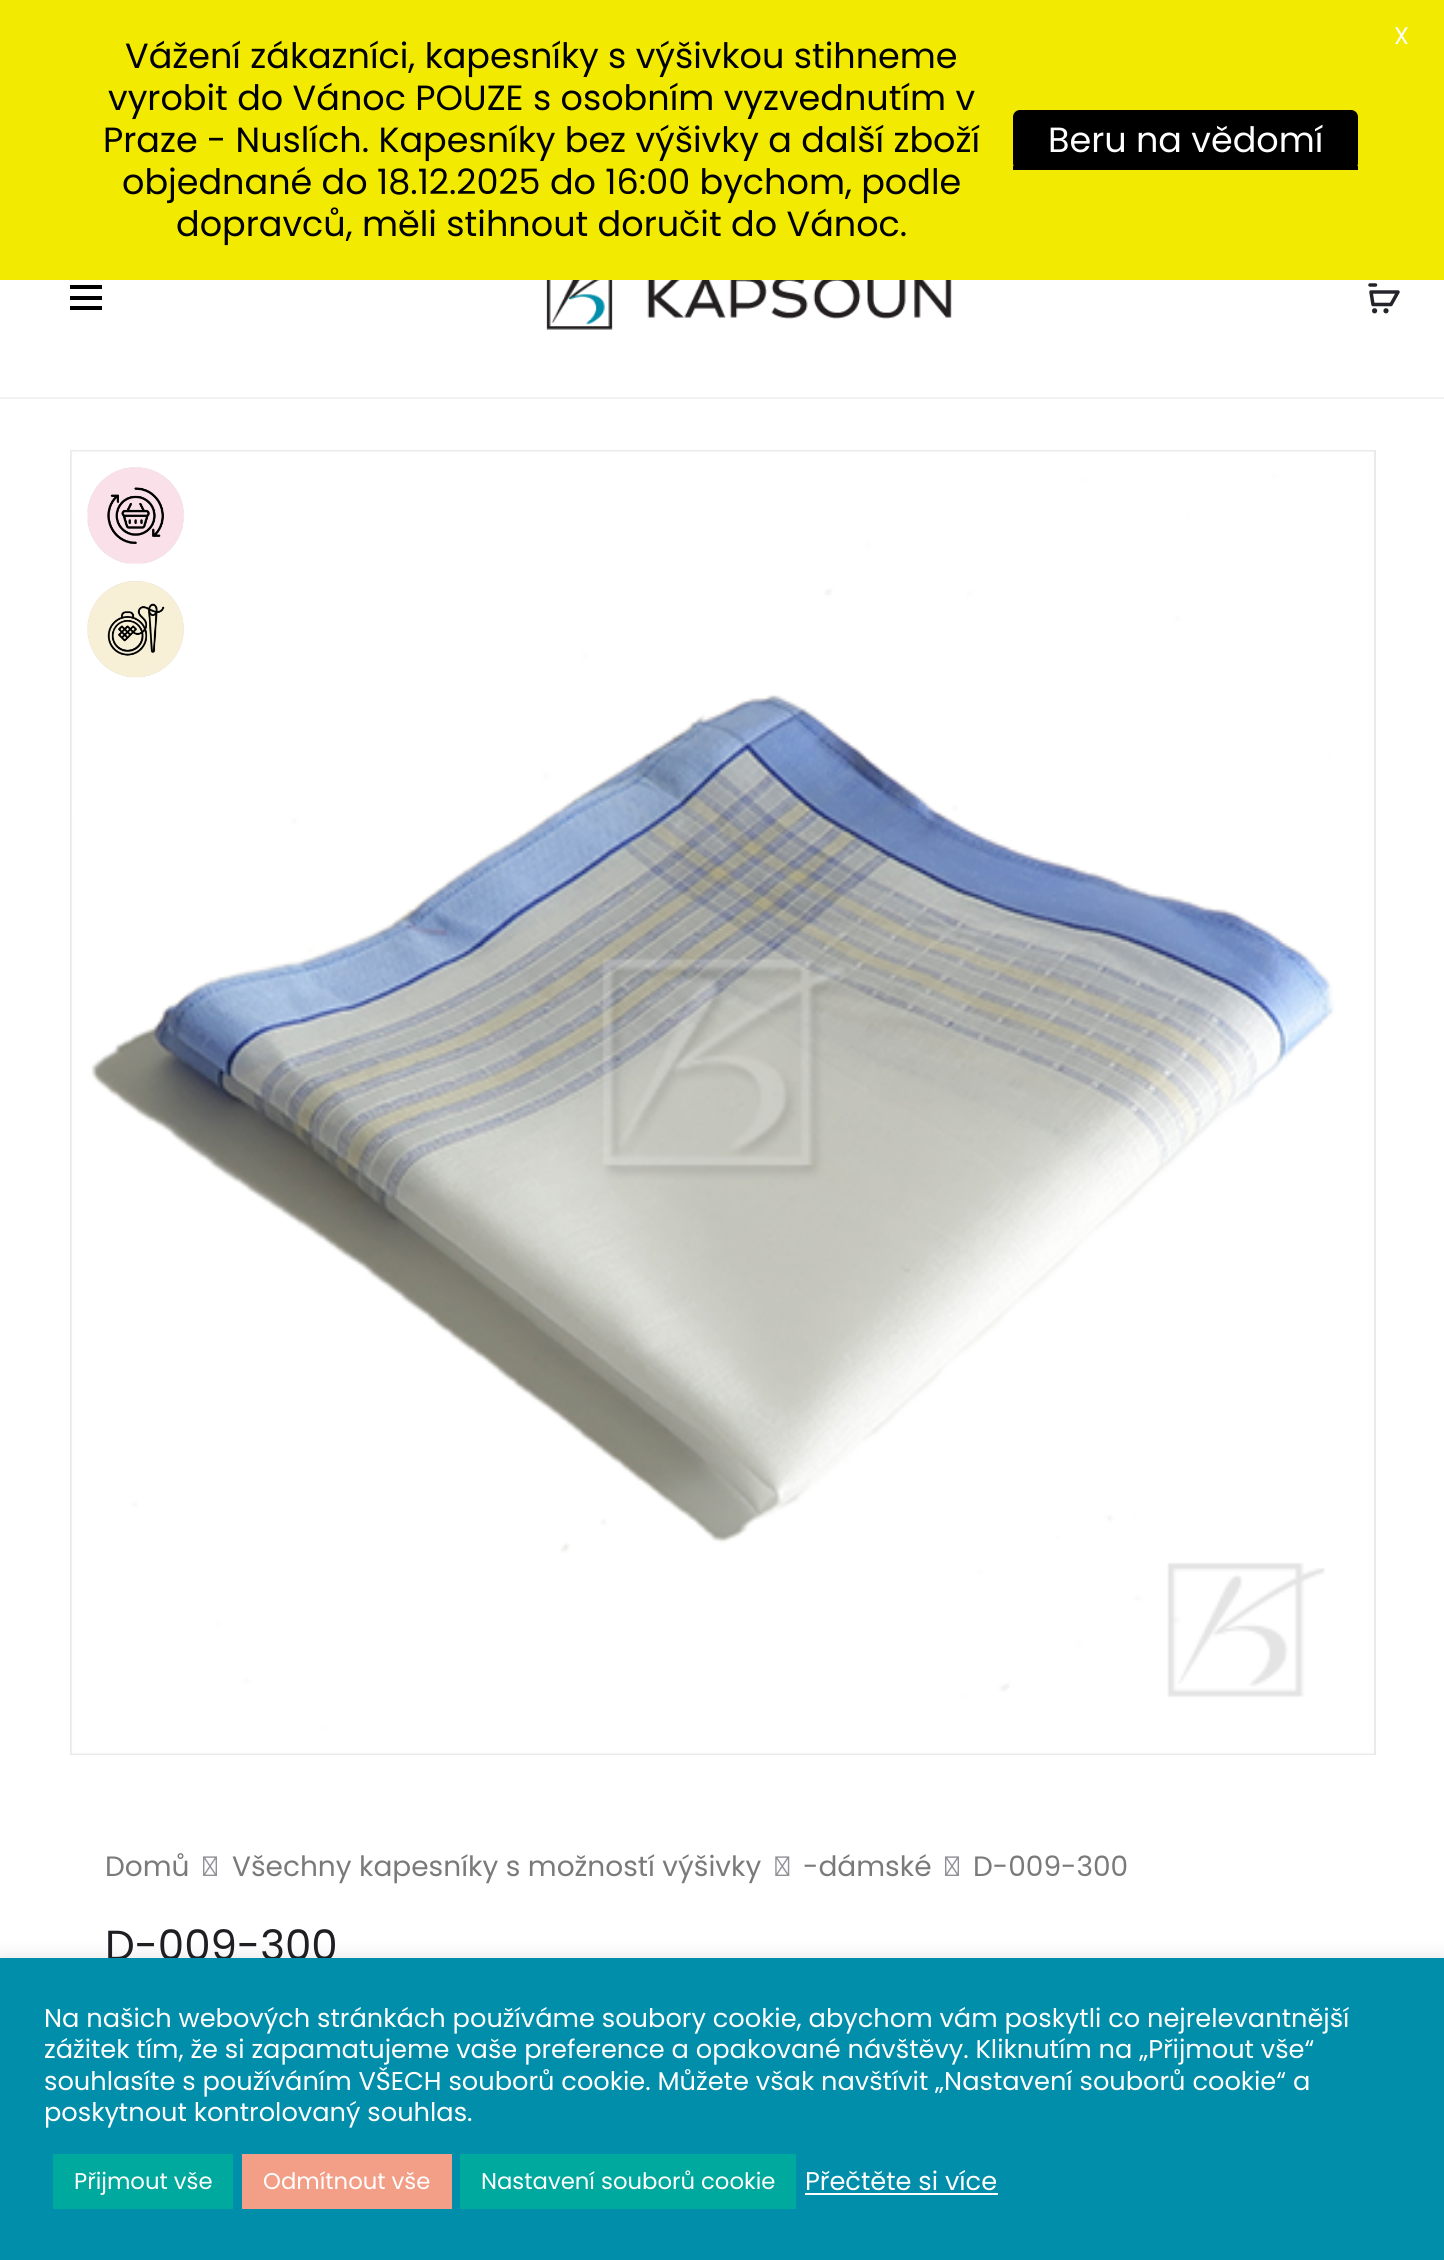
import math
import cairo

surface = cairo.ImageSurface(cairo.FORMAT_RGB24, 1444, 2260)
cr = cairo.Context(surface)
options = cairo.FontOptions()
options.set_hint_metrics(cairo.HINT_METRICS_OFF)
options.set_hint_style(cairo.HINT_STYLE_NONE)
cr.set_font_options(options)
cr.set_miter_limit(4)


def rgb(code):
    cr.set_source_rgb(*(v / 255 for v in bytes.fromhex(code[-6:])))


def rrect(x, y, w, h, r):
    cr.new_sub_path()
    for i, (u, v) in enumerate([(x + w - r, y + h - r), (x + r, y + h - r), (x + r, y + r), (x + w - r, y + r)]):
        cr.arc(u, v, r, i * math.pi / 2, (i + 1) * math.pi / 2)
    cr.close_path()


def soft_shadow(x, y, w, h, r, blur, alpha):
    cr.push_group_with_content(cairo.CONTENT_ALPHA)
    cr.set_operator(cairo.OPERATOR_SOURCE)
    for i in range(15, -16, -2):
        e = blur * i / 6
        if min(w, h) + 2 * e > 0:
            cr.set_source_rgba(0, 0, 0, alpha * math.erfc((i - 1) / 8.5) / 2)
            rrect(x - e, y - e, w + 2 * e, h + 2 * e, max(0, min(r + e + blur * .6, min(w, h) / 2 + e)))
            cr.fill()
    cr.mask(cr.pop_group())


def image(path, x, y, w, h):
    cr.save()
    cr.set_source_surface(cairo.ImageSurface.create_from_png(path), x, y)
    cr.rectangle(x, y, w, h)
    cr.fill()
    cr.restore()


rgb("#ffffff")
cr.paint()
rgb("#f2ea00")
cr.rectangle(0, 0, 1444, 280)
cr.fill()
rgb("#000000")
rrect(1013, 110, 345, 60, 7)
cr.fill()
for x, y, w, h, color in [
    (1013, 166, 345, 4, "#000000"),
    (0, 397, 1444, 2, "#f1f2f4"),
    (70, 296, 32, 4, "#000000"),
    (70, 285, 32, 4, "#000000"),
    (70, 306, 32, 4, "#000000"),
]:
    rgb(color)
    cr.rectangle(x, y, w, h)
    cr.fill()
image("img/1.png", 546, 280, 406, 50)
cr.new_path()
cr.move_to(1371, 292)
cr.line_to(1373, 304.5)
cr.line_to(1391, 304.5)
cr.line_to(1398, 292)
cr.close_path()
rgb("#23232c")
cr.set_line_width(3.5)
cr.set_line_join(cairo.LINE_JOIN_ROUND)
cr.stroke()
cr.arc(1374.6, 310.8, 2.6, 0, 2 * math.pi)
cr.fill()
cr.arc(1386, 310.8, 2.6, 0, 2 * math.pi)
cr.fill()
cr.new_path()
cr.move_to(1370, 285)
cr.line_to(1375.5, 285)
cr.set_line_cap(cairo.LINE_CAP_ROUND)
cr.set_line_join(cairo.LINE_JOIN_MITER)
cr.stroke()
cr.rectangle(71, 451, 1304, 1303)
rgb("#eaeaea")
cr.set_line_width(2)
cr.set_line_cap(cairo.LINE_CAP_BUTT)
cr.stroke()
image("img/2.png", 71, 451, 1303, 1303)
image("img/3.png", 87, 467, 97, 97)
image("img/4.png", 87, 581, 97, 97)
image("img/5.png", 203, 1856, 14, 20)
image("img/6.png", 775, 1856, 15, 20)
image("img/5.png", 945, 1856, 14, 20)
rgb("#acabab")
soft_shadow(0, 1957, 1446, 302, 0, 9, 0.3)
cr.select_font_face("Poppins")
cr.set_font_size(24)
rgb("#ffffff")
cr.move_to(1394, 44)
cr.show_text("X")
cr.set_font_size(35)
rgb("#000000")
for x, y, s in [
    (125, 68, "Vážení zákazníci, kapesníky s výšivkou stihneme"),
    (108, 110, "vyrobit do Vánoc POUZE s osobním vyzvednutím v"),
    (103, 152, "Praze - Nuslích. Kapesníky bez výšivky a další zboží"),
    (122, 194, "objednané do 18.12.2025 do 16:00 bychom, podle"),
    (176, 236, "dopravců, měli stihnout doručit do Vánoc."),
]:
    cr.move_to(x, y)
    cr.show_text(s)
rgb("#ffffff")
cr.move_to(1048, 152)
cr.show_text("Beru na vědomí")
cr.set_font_size(28)
rgb("#7a7a7a")
for x, y, s in [
    (105, 1876, "Domů"),
    (232, 1876, "Všechny kapesníky s možností výšivky"),
    (803, 1876, "-dámské"),
    (973, 1876, "D-009-300"),
]:
    cr.move_to(x, y)
    cr.show_text(s)
cr.set_font_size(42)
rgb("#1e1e23")
cr.move_to(105, 1960)
cr.show_text("D-009-300")
rgb("#008eaa")
cr.rectangle(0, 1958, 1444, 302)
cr.fill()
cr.set_font_size(25.67)
rgb("#ffffff")
for x, y, s in [
    (44, 2027, "Na našich webových stránkách používáme soubory cookie, abychom vám poskytli co nejrelevantnější"),
    (44, 2058, "zážitek tím, že si zapamatujeme vaše preference a opakované návštěvy. Kliknutím na „Přijmout vše“"),
    (44, 2090, "souhlasíte s používáním VŠECH souborů cookie. Můžete však navštívit „Nastavení souborů cookie“ a"),
    (44, 2121, "poskytnout kontrolovaný souhlas."),
]:
    cr.move_to(x, y)
    cr.show_text(s)
rgb("#00a99d")
cr.rectangle(53, 2154, 180, 55)
cr.fill()
cr.set_font_size(22.75)
rgb("#ffffff")
cr.move_to(74, 2189)
cr.show_text("Přijmout vše")
rgb("#f39f87")
cr.rectangle(242, 2154, 210, 55)
cr.fill()
rgb("#ffffff")
cr.move_to(263, 2189)
cr.show_text("Odmítnout vše")
rgb("#00a99d")
cr.rectangle(460, 2154, 336, 55)
cr.fill()
rgb("#ffffff")
cr.move_to(481, 2189)
cr.show_text("Nastavení souborů cookie")
cr.set_font_size(25.67)
cr.move_to(805, 2190)
cr.show_text("Přečtěte si více")
cr.rectangle(805, 2193, 193, 2)
cr.fill()
surface.write_to_png("page.png")
